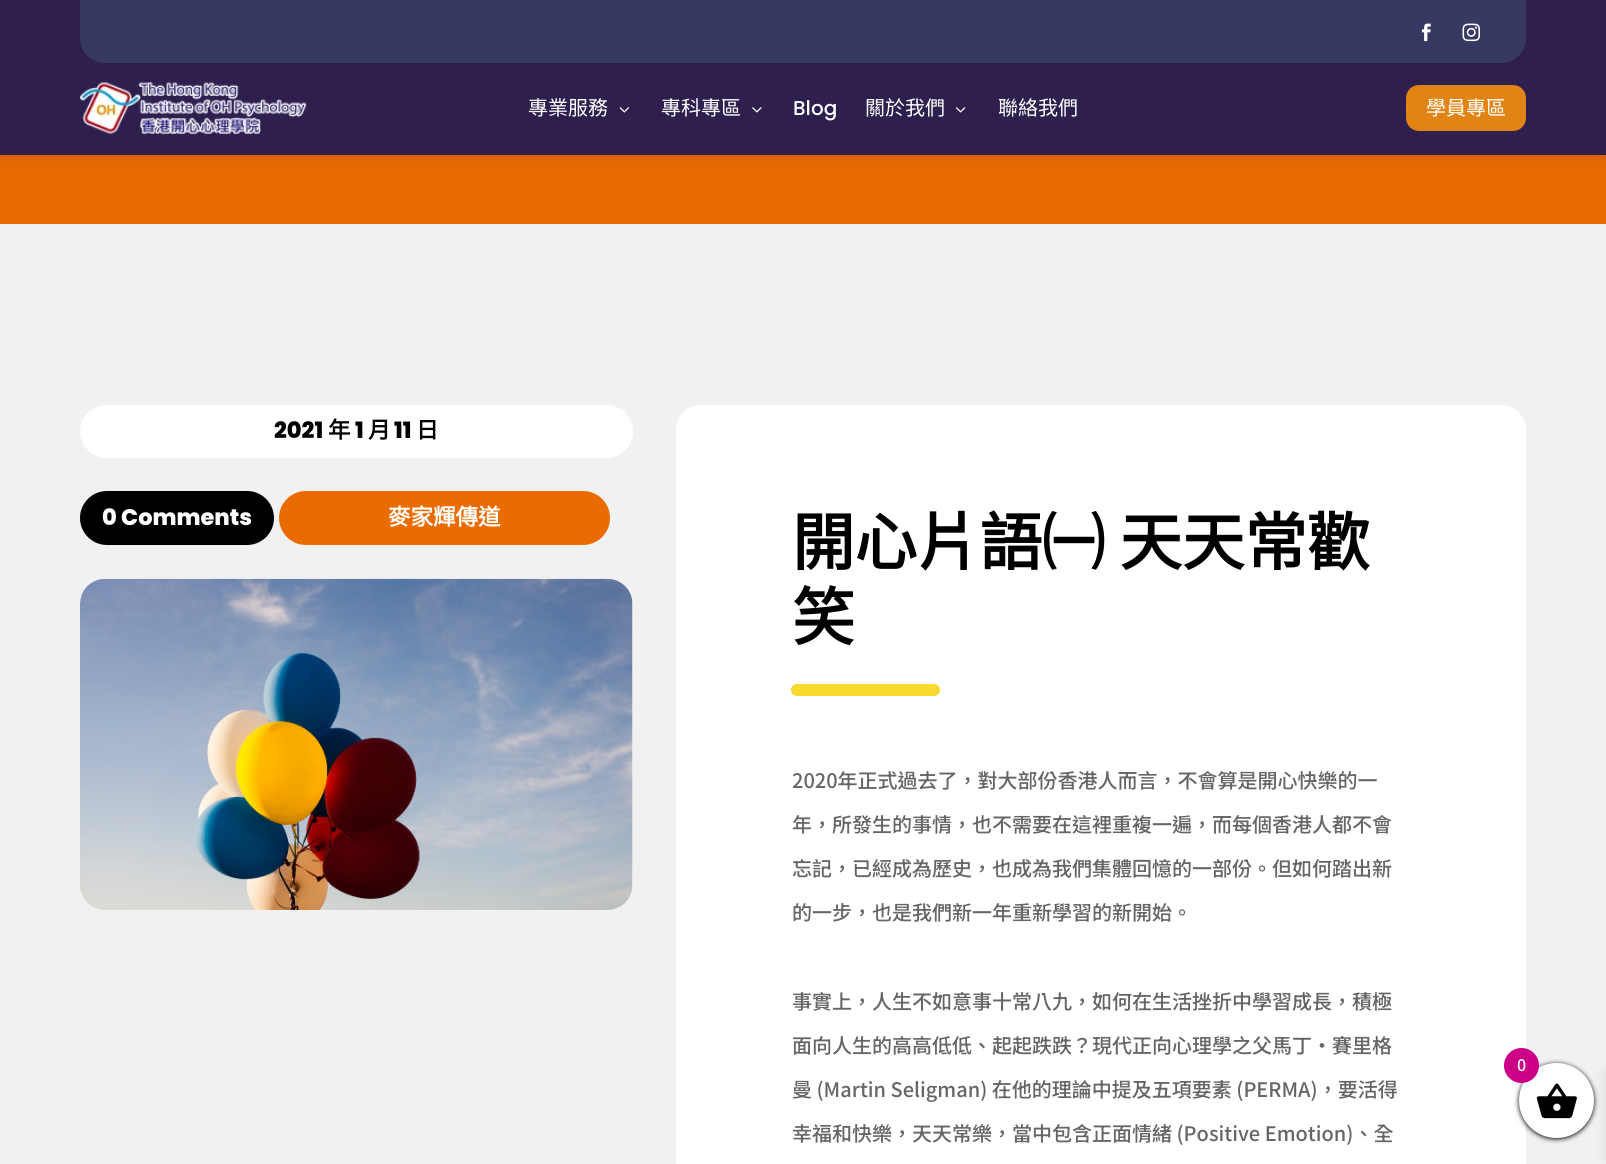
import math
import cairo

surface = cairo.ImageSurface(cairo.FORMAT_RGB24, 1606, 1164)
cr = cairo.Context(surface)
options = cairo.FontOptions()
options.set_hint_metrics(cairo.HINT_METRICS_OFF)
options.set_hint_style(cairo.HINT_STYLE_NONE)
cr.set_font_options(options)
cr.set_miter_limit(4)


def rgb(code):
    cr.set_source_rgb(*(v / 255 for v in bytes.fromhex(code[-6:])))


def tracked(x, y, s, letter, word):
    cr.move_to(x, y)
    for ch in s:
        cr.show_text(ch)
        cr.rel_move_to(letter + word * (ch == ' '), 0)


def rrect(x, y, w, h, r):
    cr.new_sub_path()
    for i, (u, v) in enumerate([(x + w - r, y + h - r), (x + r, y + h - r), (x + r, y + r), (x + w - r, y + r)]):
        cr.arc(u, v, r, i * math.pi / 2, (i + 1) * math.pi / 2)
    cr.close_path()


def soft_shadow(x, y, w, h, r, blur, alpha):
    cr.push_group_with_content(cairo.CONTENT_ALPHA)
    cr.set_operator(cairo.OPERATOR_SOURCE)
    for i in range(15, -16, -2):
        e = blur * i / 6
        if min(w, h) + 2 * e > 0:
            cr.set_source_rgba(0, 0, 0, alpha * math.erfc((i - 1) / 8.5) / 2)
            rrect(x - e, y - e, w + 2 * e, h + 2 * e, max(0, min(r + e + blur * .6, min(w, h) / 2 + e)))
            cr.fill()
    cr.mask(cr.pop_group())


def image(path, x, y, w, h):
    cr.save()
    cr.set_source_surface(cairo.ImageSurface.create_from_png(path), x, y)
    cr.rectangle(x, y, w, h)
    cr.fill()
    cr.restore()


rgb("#f1f1f1")
cr.paint()
rgb("#ea6c01")
cr.rectangle(0, 155, 1606, 69)
cr.fill()
rgb("#000000")
soft_shadow(0, 3, 1606, 155, 0, 11, 0.1)
rgb("#2e1f4f")
cr.rectangle(0, 0, 1606, 155)
cr.fill()
rgb("#363962")
cr.new_path()
cr.move_to(80, 0)
cr.line_to(1526, 0)
cr.line_to(1526, 38)
cr.curve_to(1526, 52, 1515, 63, 1501, 63)
cr.line_to(105, 63)
cr.curve_to(91, 63, 80, 52, 80, 38)
cr.close_path()
cr.fill()
image("img/1.png", 1421, 23, 10, 19)
image("img/2.png", 1462, 23, 18, 19)
image("img/3.png", 80, 82, 227, 52)
image("img/4.png", 619, 107, 10, 6)
image("img/5.png", 752, 107, 10, 6)
image("img/6.png", 956, 107, 10, 6)
rgb("#e28413")
rrect(1406, 85, 120, 46, 13)
cr.fill()
rgb("#ffffff")
rrect(80, 405, 553, 53, 26.5)
cr.fill()
rgb("#000000")
rrect(80, 491, 194, 54, 27)
cr.fill()
rgb("#ea6c01")
rrect(279, 491, 331, 54, 27)
cr.fill()
image("img/7.png", 80, 578, 553, 332)
rgb("#ffffff")
rrect(676, 405, 850, 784, 25)
cr.fill()
rgb("#f8da2f")
rrect(791, 684, 149, 12, 6)
cr.fill()
rgb("#000000")
soft_shadow(1519, 1064, 75, 75, 37.5, 2.5, 1)
soft_shadow(1606, 1070, 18, 89, 0, 6, 0.1)
rgb("#ffffff")
cr.arc(1556.5, 1100.5, 37.5, 0, 2 * math.pi)
cr.fill()
rgb("#cc0086")
cr.arc(1521.5, 1065.5, 17.5, 0, 2 * math.pi)
cr.fill()
image("img/8.png", 1536, 1083, 41, 36)
cr.select_font_face("Noto Sans CJK TC")
cr.set_font_size(20)
rgb("#ffffff")
cr.move_to(528, 115)
cr.show_text("專業服務")
cr.move_to(661, 115)
cr.show_text("專科專區")
cr.select_font_face("Poppins Medium")
cr.move_to(793, 115)
cr.show_text("Blog")
cr.select_font_face("Noto Sans CJK TC")
for x, y, s in [
    (865, 115, "關於我們"),
    (998, 115, "聯絡我們"),
    (1426, 115, "學員專區"),
]:
    cr.move_to(x, y)
    cr.show_text(s)
cr.select_font_face("Poppins ExtraBold")
cr.set_font_size(22.5)
rgb("#000000")
cr.move_to(274, 438)
cr.show_text("2021")
cr.select_font_face("Noto Sans CJK TC", cairo.FONT_SLANT_NORMAL, cairo.FONT_WEIGHT_BOLD)
cr.move_to(328, 438)
cr.show_text("年")
cr.select_font_face("Poppins ExtraBold")
cr.move_to(355, 438)
cr.show_text("1")
cr.select_font_face("Noto Sans CJK TC", cairo.FONT_SLANT_NORMAL, cairo.FONT_WEIGHT_BOLD)
cr.move_to(368, 438)
cr.show_text("月")
cr.select_font_face("Poppins ExtraBold")
cr.move_to(394, 438)
cr.show_text("11")
cr.select_font_face("Noto Sans CJK TC", cairo.FONT_SLANT_NORMAL, cairo.FONT_WEIGHT_BOLD)
cr.move_to(416, 438)
cr.show_text("日")
cr.select_font_face("Poppins ExtraBold")
rgb("#ffffff")
cr.move_to(102, 525)
cr.show_text("0 Comments")
cr.select_font_face("Noto Sans CJK TC", cairo.FONT_SLANT_NORMAL, cairo.FONT_WEIGHT_BOLD)
cr.move_to(388, 525)
cr.show_text("麥家輝傳道")
cr.set_font_size(62.5)
rgb("#000000")
tracked(792, 565, "開心片語㈠ 天天常歡", 0, 1)
cr.move_to(792, 640)
cr.show_text("笑")
cr.select_font_face("Noto Sans TC Medium")
cr.set_font_size(20)
rgb("#666666")
for x, y, s in [
    (792, 788, "2020年正式過去了，對大部份香港人而言，不會算是開心快樂的一"),
    (792, 832, "年，所發生的事情，也不需要在這裡重複一遍，而每個香港人都不會"),
    (792, 876, "忘記，已經成為歷史，也成為我們集體回憶的一部份。但如何踏出新"),
    (792, 920, "的一步，也是我們新一年重新學習的新開始。"),
    (792, 1009, "事實上，人生不如意事十常八九，如何在生活挫折中學習成長，積極"),
    (792, 1053, "面向人生的高高低低、起起跌跌？現代正向心理學之父馬丁·賽里格"),
    (792, 1097, "曼 (Martin Seligman) 在他的理論中提及五項要素 (PERMA)，要活得"),
    (792, 1141, "幸福和快樂，天天常樂，當中包含正面情緒 (Positive Emotion)、全"),
]:
    cr.move_to(x, y)
    cr.show_text(s)
cr.set_font_size(16)
rgb("#ffffff")
cr.move_to(1517, 1071)
cr.show_text("0")
surface.write_to_png("page.png")
